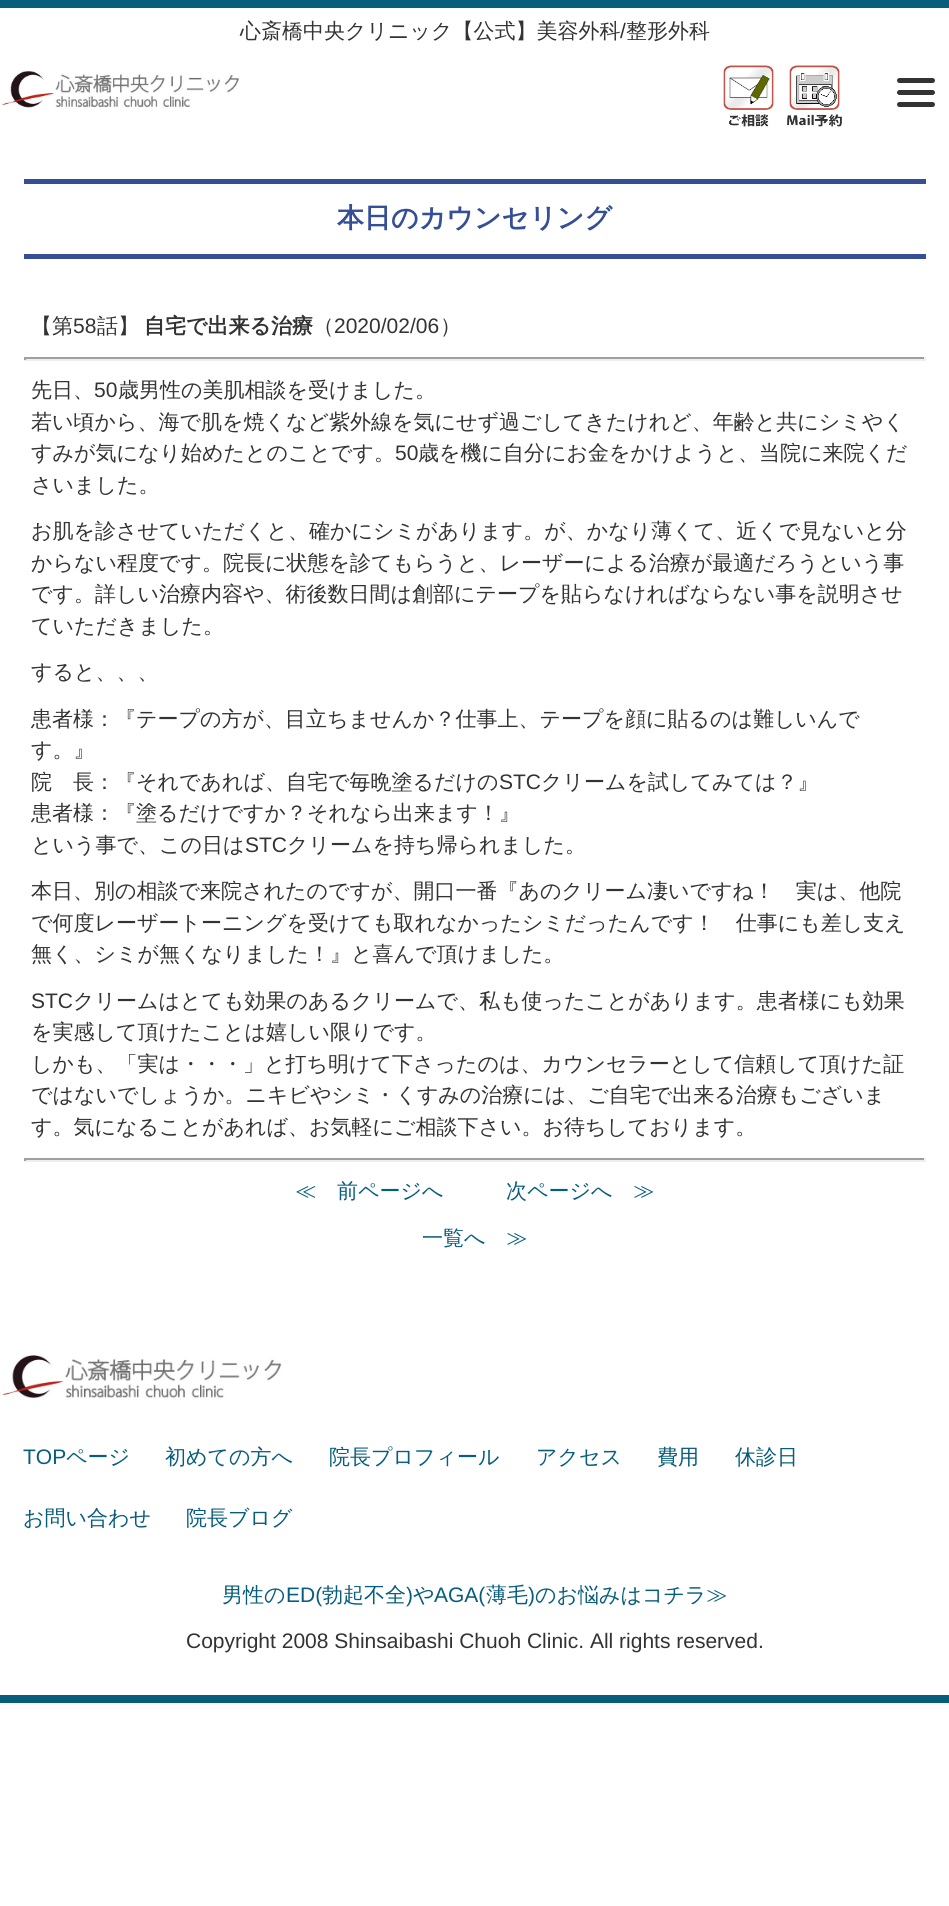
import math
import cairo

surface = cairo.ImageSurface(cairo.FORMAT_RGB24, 949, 1906)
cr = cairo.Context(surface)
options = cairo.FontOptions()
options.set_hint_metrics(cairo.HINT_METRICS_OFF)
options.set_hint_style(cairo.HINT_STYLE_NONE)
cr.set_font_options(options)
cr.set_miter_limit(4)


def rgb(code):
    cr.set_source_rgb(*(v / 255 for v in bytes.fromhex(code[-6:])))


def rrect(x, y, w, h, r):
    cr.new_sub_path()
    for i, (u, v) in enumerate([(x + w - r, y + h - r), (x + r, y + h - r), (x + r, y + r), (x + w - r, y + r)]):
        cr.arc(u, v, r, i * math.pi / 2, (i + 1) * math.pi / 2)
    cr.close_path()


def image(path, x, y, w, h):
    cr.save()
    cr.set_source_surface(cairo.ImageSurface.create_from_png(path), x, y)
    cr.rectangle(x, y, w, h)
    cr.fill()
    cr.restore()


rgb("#ffffff")
cr.paint()
rgb("#065d7c")
cr.rectangle(0, 0, 949, 8)
cr.fill()
cr.rectangle(0, 1695, 949, 8)
cr.fill()
image("img/1.png", 0, 71, 240, 37)
image("img/2.png", 723, 65, 51, 62)
image("img/3.png", 787, 65, 56, 62)
rgb("#333333")
rrect(897, 90, 38, 5, 2.5)
cr.fill()
rrect(897, 78, 38, 5, 2.5)
cr.fill()
rrect(897, 102, 38, 5, 2.5)
cr.fill()
for x, y, w, h, color in [
    (24, 179, 902, 5, "#364e96"),
    (24, 254, 902, 5, "#364e96"),
    (24, 357, 902, 2, "#9f9f9f"),
    (924, 357, 2, 3, "#eeeeee"),
    (24, 359, 902, 2, "#eeeeee"),
    (24, 357, 2, 3, "#9f9f9f"),
    (24, 1158, 902, 2, "#9f9f9f"),
    (924, 1158, 2, 3, "#eeeeee"),
    (24, 1160, 902, 2, "#eeeeee"),
    (24, 1158, 2, 3, "#9f9f9f"),
]:
    rgb(color)
    cr.rectangle(x, y, w, h)
    cr.fill()
image("img/4.png", 0, 1355, 282, 44)
cr.select_font_face("WenQuanYi Zen Hei Medium")
cr.set_font_size(21)
rgb("#333333")
cr.move_to(240, 38)
cr.show_text("心斎橋中央クリニック【公式】美容外科")
cr.select_font_face("Liberation Sans")
cr.move_to(620, 38)
cr.show_text("/")
cr.select_font_face("WenQuanYi Zen Hei Medium")
cr.move_to(626, 38)
cr.show_text("整形外科")
cr.select_font_face("WenQuanYi Zen Hei", cairo.FONT_SLANT_NORMAL, cairo.FONT_WEIGHT_BOLD)
cr.set_font_size(27)
rgb("#364e96")
cr.move_to(337, 227)
cr.show_text("本日のカウンセリング")
cr.select_font_face("WenQuanYi Zen Hei Medium")
cr.set_font_size(21)
rgb("#333333")
cr.move_to(31, 333)
cr.show_text("【第")
cr.select_font_face("Liberation Sans")
cr.move_to(73, 333)
cr.show_text("58")
cr.select_font_face("WenQuanYi Zen Hei Medium")
cr.move_to(97, 333)
cr.show_text("話】")
cr.select_font_face("WenQuanYi Zen Hei", cairo.FONT_SLANT_NORMAL, cairo.FONT_WEIGHT_BOLD)
cr.move_to(144, 333)
cr.show_text("自宅で出来る治療")
cr.select_font_face("WenQuanYi Zen Hei Medium")
cr.move_to(313, 333)
cr.show_text("（")
cr.select_font_face("Liberation Sans")
cr.move_to(334, 333)
cr.show_text("2020/02/06")
cr.select_font_face("WenQuanYi Zen Hei Medium")
cr.move_to(440, 333)
cr.show_text("）")
cr.move_to(31, 397)
cr.show_text("先日、")
cr.select_font_face("Liberation Sans")
cr.move_to(94, 397)
cr.show_text("50")
cr.select_font_face("WenQuanYi Zen Hei Medium")
for x, y, s in [
    (118, 397, "歳男性の美肌相談を受けました。"),
    (31, 429, "若い頃から、海で肌を焼くなど紫外線を気にせず過ごしてきたけれど、年齢と共にシミやく"),
    (31, 460, "すみが気になり始めたとのことです。"),
]:
    cr.move_to(x, y)
    cr.show_text(s)
cr.select_font_face("Liberation Sans")
cr.move_to(395, 460)
cr.show_text("50")
cr.select_font_face("WenQuanYi Zen Hei Medium")
for x, y, s in [
    (418, 460, "歳を機に自分にお金をかけようと、当院に来院くだ"),
    (31, 492, "さいました。"),
    (31, 538, "お肌を診させていただくと、確かにシミがあります。が、かなり薄くて、近くで見ないと分"),
    (31, 570, "からない程度です。院長に状態を診てもらうと、レーザーによる治療が最適だろうという事"),
    (31, 601, "です。詳しい治療内容や、術後数日間は創部にテープを貼らなければならない事を説明させ"),
    (31, 633, "ていただきました。"),
    (31, 679, "すると、、、"),
    (31, 726, "患者様：『テープの方が、目立ちませんか？仕事上、テープを顔に貼るのは難しいんで"),
    (31, 757, "す。』"),
    (31, 789, "院　長：『それであれば、自宅で毎晩塗るだけの"),
]:
    cr.move_to(x, y)
    cr.show_text(s)
cr.select_font_face("Liberation Sans")
cr.move_to(499, 789)
cr.show_text("STC")
cr.select_font_face("WenQuanYi Zen Hei Medium")
for x, y, s in [
    (541, 789, "クリームを試してみては？』"),
    (31, 820, "患者様：『塗るだけですか？それなら出来ます！』"),
    (31, 852, "という事で、この日は"),
]:
    cr.move_to(x, y)
    cr.show_text(s)
cr.select_font_face("Liberation Sans")
cr.move_to(245, 852)
cr.show_text("STC")
cr.select_font_face("WenQuanYi Zen Hei Medium")
for x, y, s in [
    (287, 852, "クリームを持ち帰られました。"),
    (31, 898, "本日、別の相談で来院されたのですが、開口一番『あのクリーム凄いですね！　実は、他院"),
    (31, 930, "で何度レーザートーニングを受けても取れなかったシミだったんです！　仕事にも差し支え"),
    (31, 961, "無く、シミが無くなりました！』と喜んで頂けました。"),
]:
    cr.move_to(x, y)
    cr.show_text(s)
cr.select_font_face("Liberation Sans")
cr.move_to(31, 1008)
cr.show_text("STC")
cr.select_font_face("WenQuanYi Zen Hei Medium")
for x, y, s in [
    (73, 1008, "クリームはとても効果のあるクリームで、私も使ったことがあります。患者様にも効果"),
    (31, 1039, "を実感して頂けたことは嬉しい限りです。"),
    (31, 1071, "しかも、「実は・・・」と打ち明けて下さったのは、カウンセラーとして信頼して頂けた証"),
    (31, 1102, "ではないでしょうか。ニキビやシミ・くすみの治療には、ご自宅で出来る治療もございま"),
    (31, 1134, "す。気になることがあれば、お気軽にご相談下さい。お待ちしております。"),
]:
    cr.move_to(x, y)
    cr.show_text(s)
rgb("#065d7c")
for x, y, s in [
    (295, 1198, "≪　前ページへ"),
    (506, 1198, "次ページへ　≫"),
    (422, 1245, "一覧へ　≫"),
]:
    cr.move_to(x, y)
    cr.show_text(s)
cr.select_font_face("Liberation Sans")
cr.move_to(23, 1464)
cr.show_text("TOP")
cr.select_font_face("WenQuanYi Zen Hei Medium")
for x, y, s in [
    (66, 1464, "ページ"),
    (165, 1464, "初めての方へ"),
    (329, 1464, "院長プロフィール"),
    (536, 1464, "アクセス"),
    (657, 1464, "費用"),
    (735, 1464, "休診日"),
    (23, 1525, "お問い合わせ"),
    (186, 1525, "院長ブログ"),
    (222, 1602, "男性の"),
]:
    cr.move_to(x, y)
    cr.show_text(s)
cr.select_font_face("Liberation Sans")
cr.move_to(286, 1602)
cr.show_text("ED(")
cr.select_font_face("WenQuanYi Zen Hei Medium")
cr.move_to(322, 1602)
cr.show_text("勃起不全")
cr.select_font_face("Liberation Sans")
cr.move_to(406, 1602)
cr.show_text(")")
cr.select_font_face("WenQuanYi Zen Hei Medium")
cr.move_to(413, 1602)
cr.show_text("や")
cr.select_font_face("Liberation Sans")
cr.move_to(434, 1602)
cr.show_text("AGA(")
cr.select_font_face("WenQuanYi Zen Hei Medium")
cr.move_to(486, 1602)
cr.show_text("薄毛")
cr.select_font_face("Liberation Sans")
cr.move_to(528, 1602)
cr.show_text(")")
cr.select_font_face("WenQuanYi Zen Hei Medium")
cr.move_to(535, 1602)
cr.show_text("のお悩みはコチラ≫")
cr.select_font_face("Liberation Sans")
rgb("#333333")
cr.move_to(186, 1648)
cr.show_text("Copyright 2008 Shinsaibashi Chuoh Clinic. All rights reserved.")
surface.write_to_png("page.png")
